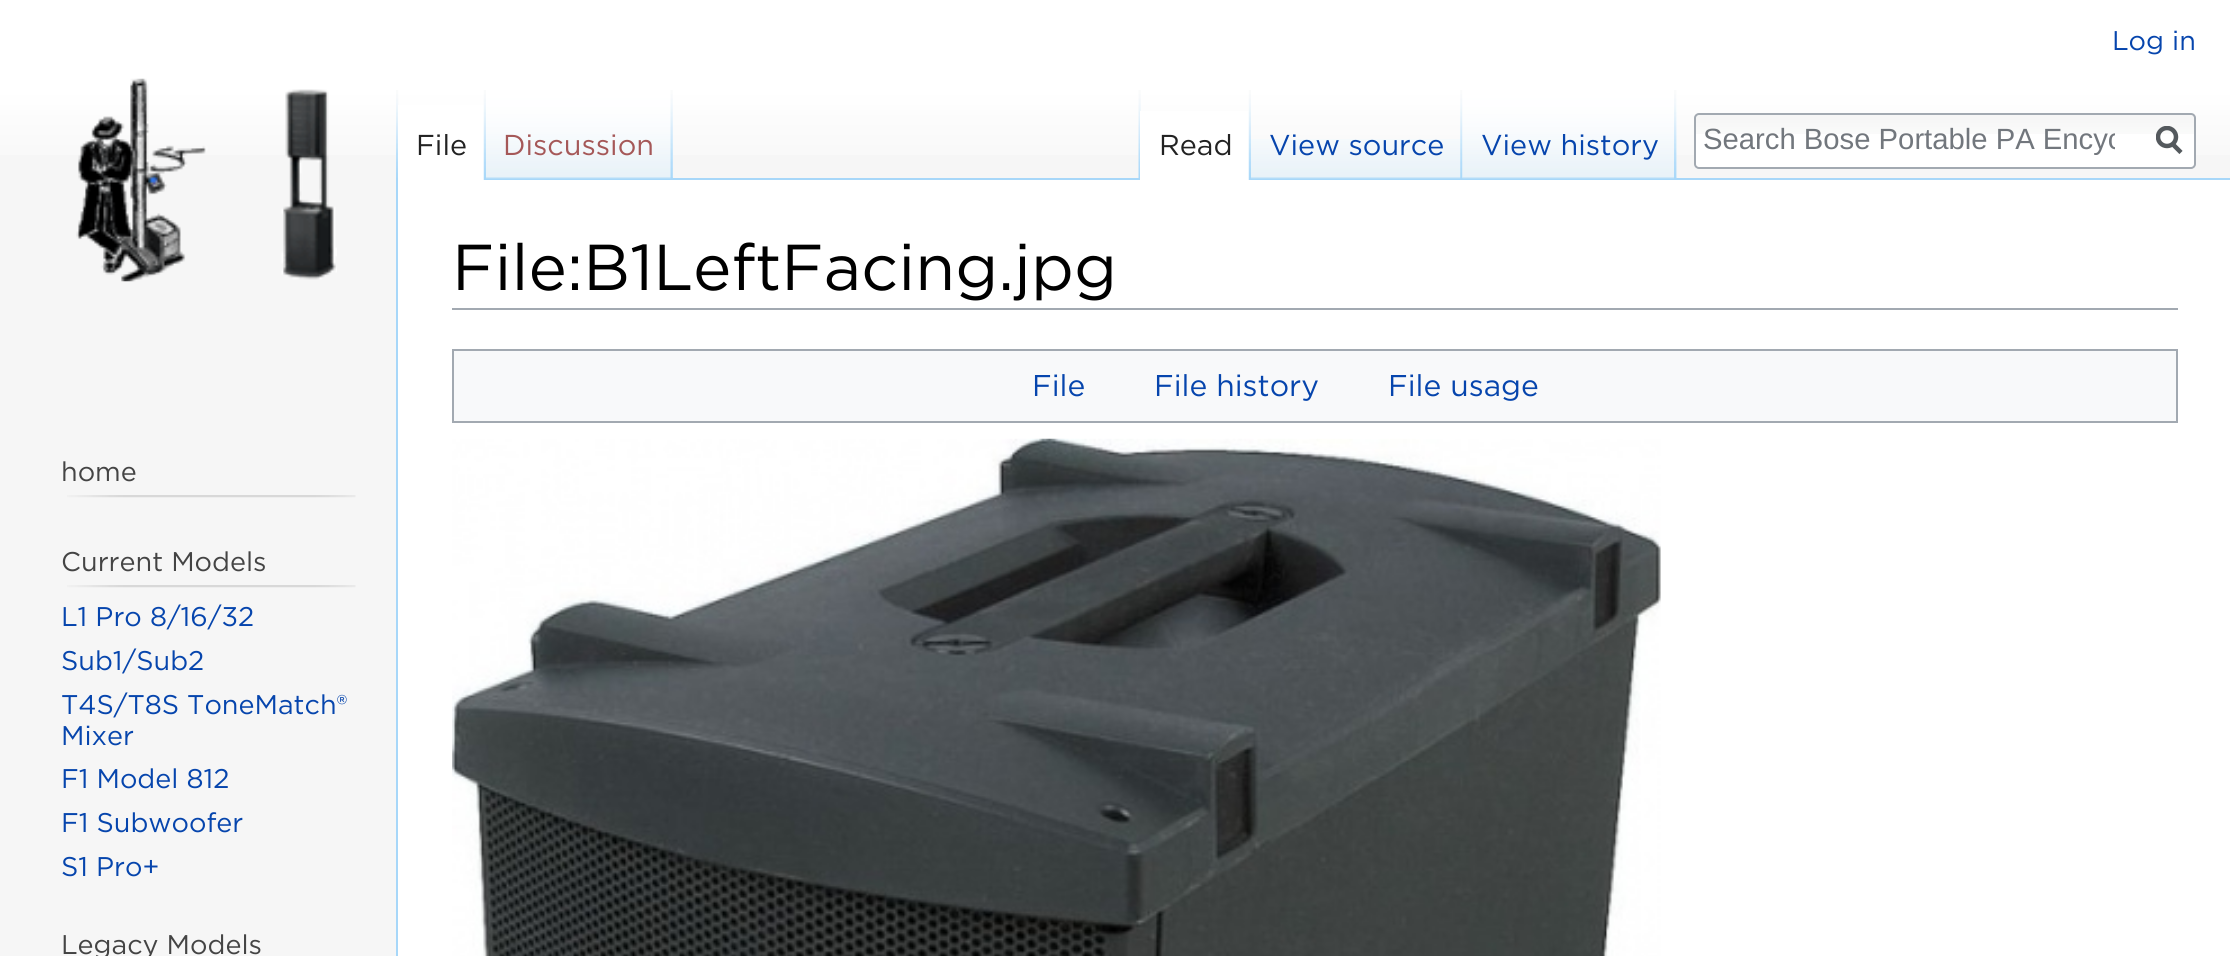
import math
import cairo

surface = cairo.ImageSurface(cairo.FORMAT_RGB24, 2230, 956)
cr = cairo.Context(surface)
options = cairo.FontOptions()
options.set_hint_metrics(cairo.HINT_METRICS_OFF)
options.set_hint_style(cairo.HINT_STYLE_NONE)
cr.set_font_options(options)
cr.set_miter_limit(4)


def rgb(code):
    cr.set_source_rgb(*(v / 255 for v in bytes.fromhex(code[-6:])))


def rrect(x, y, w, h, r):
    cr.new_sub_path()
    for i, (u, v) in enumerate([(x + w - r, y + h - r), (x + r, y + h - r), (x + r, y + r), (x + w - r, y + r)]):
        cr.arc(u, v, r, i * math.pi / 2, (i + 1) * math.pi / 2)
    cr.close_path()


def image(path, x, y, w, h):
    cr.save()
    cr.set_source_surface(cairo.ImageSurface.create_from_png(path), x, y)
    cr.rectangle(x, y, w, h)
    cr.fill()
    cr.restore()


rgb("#f6f6f6")
cr.paint()
gradient = cairo.LinearGradient(1116, 0, 1116, 180)
gradient.add_color_stop_rgba(0.5, 1, 1, 1, 1)
gradient.add_color_stop_rgba(1, 0.965, 0.965, 0.965, 1)
cr.set_source(gradient)
cr.rectangle(0, 0, 2230, 155)
cr.fill()
image("img/1.png", 396, 90, 3, 88)
image("img/2.png", 672, 90, 1, 88)
rgb("#ffffff")
cr.rectangle(398, 105, 86, 75)
cr.fill()
image("img/3.png", 483, 90, 3, 90)
rgb("#a7d7f9")
cr.rectangle(486, 178, 1744, 2)
cr.fill()
image("img/4.png", 486, 90, 187, 89)
image("img/5.png", 670, 90, 3, 89)
image("img/6.png", 1138, 90, 3, 88)
image("img/7.png", 1676, 90, 1, 88)
rgb("#ffffff")
cr.rectangle(1140, 111, 109, 69)
cr.fill()
image("img/8.png", 1248, 90, 3, 90)
image("img/9.png", 1251, 139, 212, 40)
image("img/10.png", 1460, 90, 3, 89)
image("img/11.png", 1462, 90, 215, 89)
image("img/12.png", 1674, 90, 3, 89)
rrect(1694, 113, 502, 56, 5)
cr.fill()
image("img/13.png", 1694, 115, 502, 19)
rrect(1695, 114, 500, 54, 4)
rgb("#a2a9b1")
cr.stroke()
cr.new_path()
cr.move_to(2181, 152.5)
cr.line_to(2172, 143.5)
rgb("#54595d")
cr.set_line_width(4.5)
cr.stroke()
cr.save()
cr.rectangle(2156, 126, 27, 29)
cr.clip()
cr.arc(2167, 137, 9, 0, 2 * math.pi)
cr.stroke()
cr.restore()
image("img/14.png", 76, 78, 261, 204)
image("img/15.png", 67, 495, 289, 3)
image("img/15.png", 67, 585, 289, 3)
for x, y, w, h, color in [
    (398, 180, 1832, 776, "#ffffff"),
    (396, 178, 2, 778, "#a7d7f9"),
    (452, 308, 1726, 2, "#a2a9b1"),
]:
    rgb(color)
    cr.rectangle(x, y, w, h)
    cr.fill()
rgb("#f8f9fa")
cr.rectangle(453, 350, 1724, 72)
cr.fill_preserve()
rgb("#a2a9b1")
cr.set_line_width(2)
cr.stroke()
image("img/16.png", 452, 438, 1209, 518)
cr.select_font_face("Gotham")
cr.set_font_size(27)
rgb("#0645ad")
cr.move_to(2112, 50)
cr.show_text("Log in")
cr.set_font_size(28.75)
rgb("#222222")
cr.move_to(416, 155)
cr.show_text("File")
rgb("#a55858")
cr.move_to(503, 155)
cr.show_text("Discussion")
rgb("#222222")
cr.move_to(1159, 155)
cr.show_text("Read")
rgb("#0645ad")
cr.move_to(1269, 155)
cr.show_text("View source")
cr.move_to(1481, 155)
cr.show_text("View history")
cr.save()
cr.rectangle(1703, 122, 412, 33)
cr.clip()
cr.select_font_face("Liberation Sans")
cr.set_font_size(29.25)
rgb("#72777d")
cr.move_to(1703, 149)
cr.show_text("Search Bose Portable PA Encyc")
cr.restore()
cr.set_font_size(27)
rgb("#444444")
cr.move_to(61, 481)
cr.show_text("home")
cr.move_to(61, 571)
cr.show_text("Current Models")
rgb("#0645ad")
for x, y, s in [
    (61, 626, "L1 Pro 8/16/32"),
    (61, 670, "Sub1/Sub2"),
    (61, 714, "T4S/T8S ToneMatch®"),
    (61, 745, "Mixer"),
    (61, 788, "F1 Model 812"),
    (61, 832, "F1 Subwoofer"),
    (61, 876, "S1 Pro+"),
]:
    cr.move_to(x, y)
    cr.show_text(s)
rgb("#444444")
cr.move_to(61, 954)
cr.show_text("Legacy Models")
cr.set_font_size(64.75)
rgb("#000000")
cr.move_to(452, 290)
cr.show_text("File:B1LeftFacing.jpg")
cr.set_font_size(30)
rgb("#0645ad")
for x, y, s in [
    (1032, 396, "File"),
    (1154, 396, "File history"),
    (1388, 396, "File usage"),
]:
    cr.move_to(x, y)
    cr.show_text(s)
surface.write_to_png("page.png")
